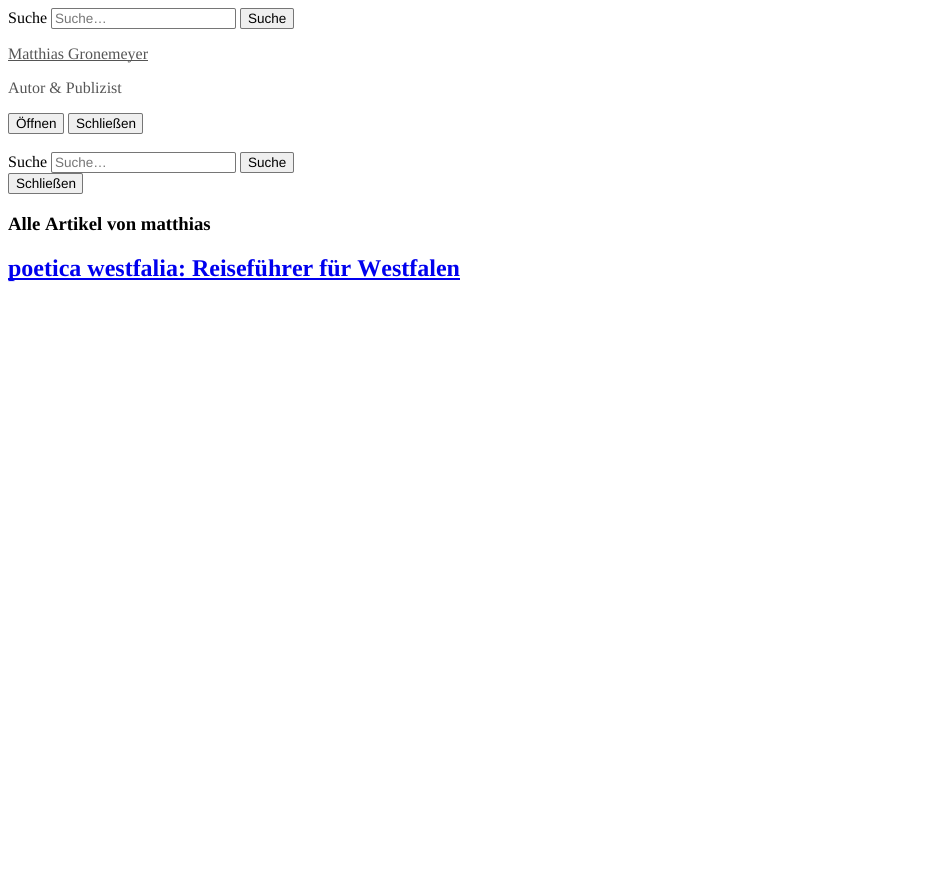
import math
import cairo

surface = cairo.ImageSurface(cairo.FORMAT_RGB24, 929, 894)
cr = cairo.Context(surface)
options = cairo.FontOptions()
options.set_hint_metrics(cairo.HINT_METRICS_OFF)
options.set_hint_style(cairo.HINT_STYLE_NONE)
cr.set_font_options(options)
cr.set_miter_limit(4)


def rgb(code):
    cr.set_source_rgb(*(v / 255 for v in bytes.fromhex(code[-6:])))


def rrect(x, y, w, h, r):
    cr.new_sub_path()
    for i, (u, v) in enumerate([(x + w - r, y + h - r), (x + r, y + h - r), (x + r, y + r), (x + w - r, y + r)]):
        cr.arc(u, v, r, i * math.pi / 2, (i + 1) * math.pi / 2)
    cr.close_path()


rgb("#ffffff")
cr.paint()
rrect(51.5, 8.5, 184, 20, 1.5)
rgb("#767676")
cr.set_line_width(1)
cr.stroke()
rgb("#efefef")
rrect(240.5, 8.5, 53, 20, 1.5)
cr.fill_preserve()
rgb("#767676")
cr.stroke()
rgb("#555555")
cr.rectangle(8, 60, 140, 1)
cr.fill()
rgb("#efefef")
rrect(8.5, 113.5, 55, 20, 1.5)
cr.fill_preserve()
rgb("#767676")
cr.stroke()
rgb("#efefef")
rrect(68.5, 113.5, 74, 20, 1.5)
cr.fill_preserve()
rgb("#767676")
cr.stroke()
rrect(51.5, 152.5, 184, 20, 1.5)
cr.stroke()
rgb("#efefef")
rrect(240.5, 152.5, 53, 20, 1.5)
cr.fill_preserve()
rgb("#767676")
cr.stroke()
rgb("#efefef")
rrect(8.5, 173.5, 74, 20, 1.5)
cr.fill_preserve()
rgb("#767676")
cr.stroke()
rgb("#0000ee")
cr.rectangle(8, 278, 452, 2)
cr.fill()
cr.select_font_face("Liberation Serif")
cr.set_font_size(16)
rgb("#000000")
cr.move_to(8, 23)
cr.show_text("Suche")
cr.select_font_face("Liberation Sans")
cr.set_font_size(13.5)
rgb("#757575")
cr.move_to(55, 23)
cr.show_text("Suche…")
rgb("#000000")
cr.move_to(248, 23)
cr.show_text("Suche")
cr.select_font_face("Liberation Serif")
cr.set_font_size(16)
rgb("#555555")
cr.move_to(8, 59)
cr.show_text("Matthias Gronemeyer")
cr.move_to(8, 93)
cr.show_text("Autor & Publizist")
cr.select_font_face("Liberation Sans")
cr.set_font_size(13.5)
rgb("#000000")
cr.move_to(16, 128)
cr.show_text("Öffnen")
cr.move_to(76, 128)
cr.show_text("Schließen")
cr.select_font_face("Liberation Serif")
cr.set_font_size(16)
cr.move_to(8, 167)
cr.show_text("Suche")
cr.select_font_face("Liberation Sans")
cr.set_font_size(13.5)
rgb("#757575")
cr.move_to(55, 167)
cr.show_text("Suche…")
rgb("#000000")
cr.move_to(248, 167)
cr.show_text("Suche")
cr.move_to(16, 188)
cr.show_text("Schließen")
cr.select_font_face("Liberation Serif", cairo.FONT_SLANT_NORMAL, cairo.FONT_WEIGHT_BOLD)
cr.set_font_size(18.75)
cr.move_to(8, 230)
cr.show_text("Alle Artikel von matthias")
cr.set_font_size(24)
rgb("#0000ee")
cr.move_to(8, 276)
cr.show_text("poetica westfalia: Reiseführer für Westfalen")
surface.write_to_png("page.png")
